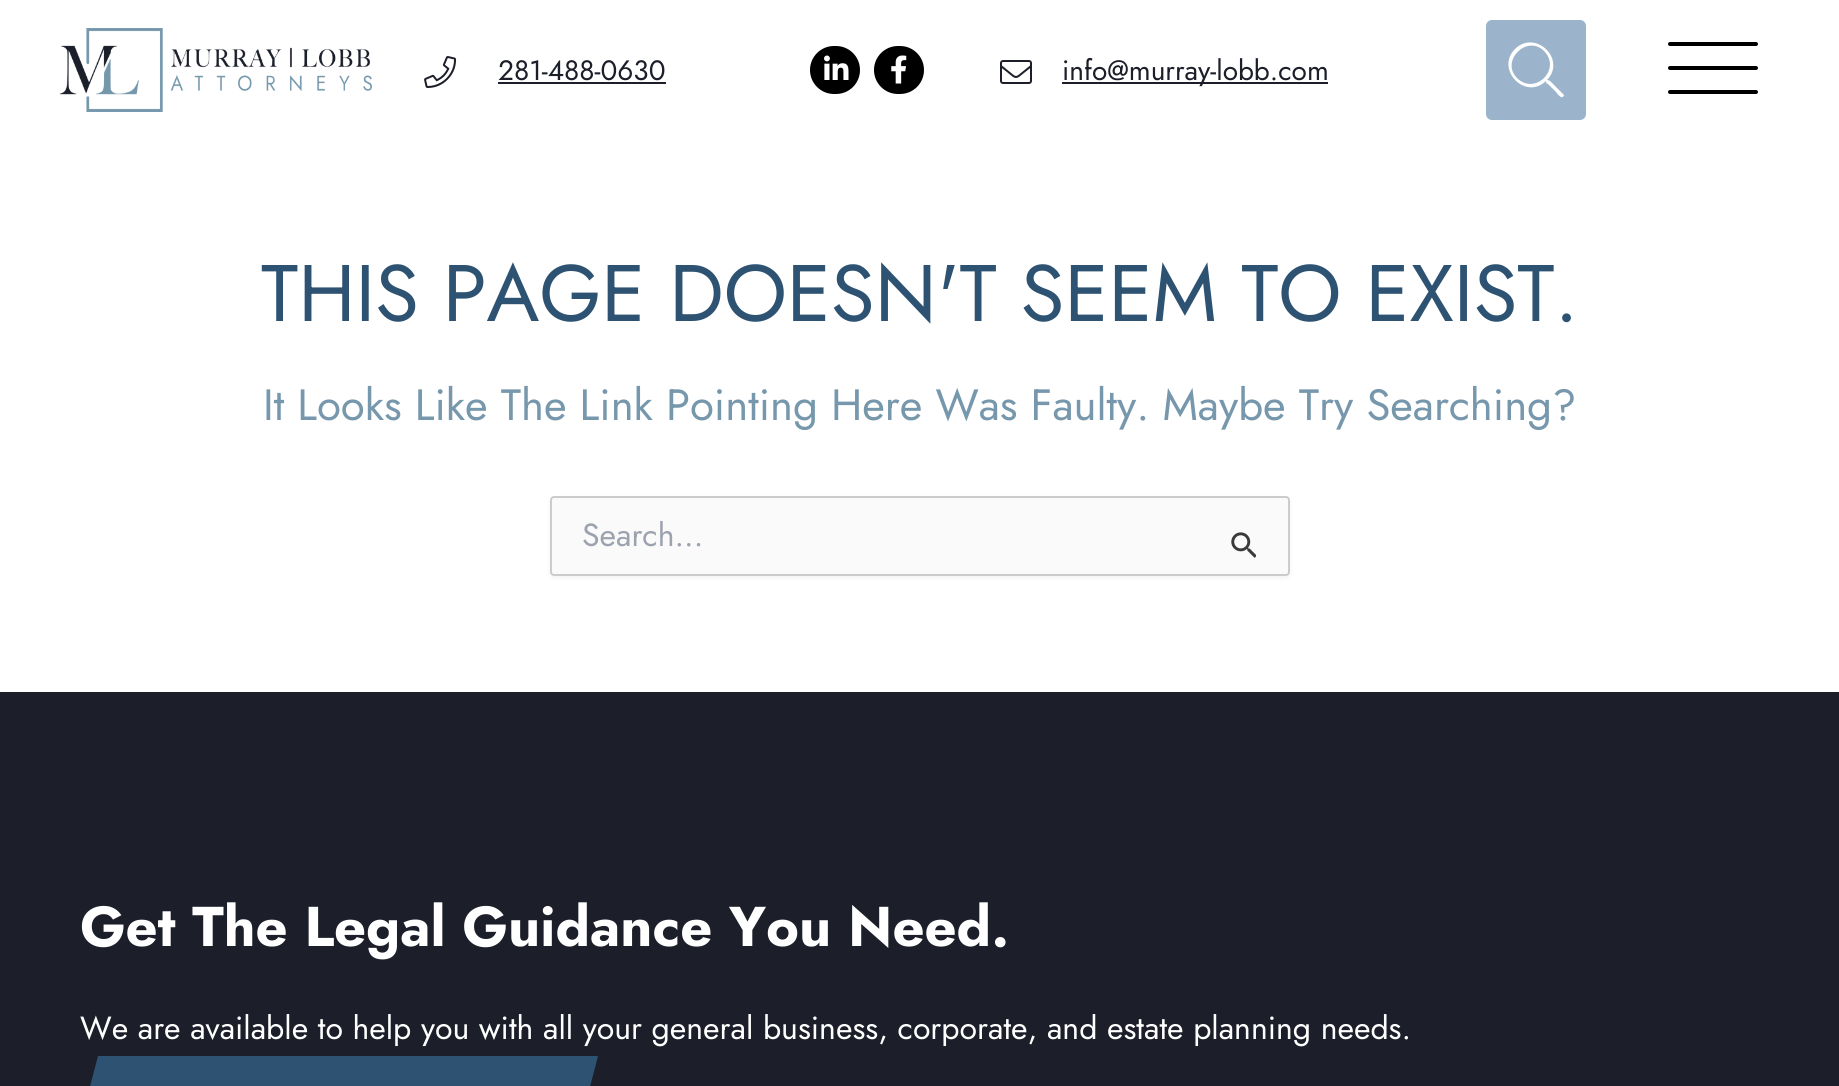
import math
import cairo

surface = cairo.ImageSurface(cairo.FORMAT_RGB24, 1839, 1086)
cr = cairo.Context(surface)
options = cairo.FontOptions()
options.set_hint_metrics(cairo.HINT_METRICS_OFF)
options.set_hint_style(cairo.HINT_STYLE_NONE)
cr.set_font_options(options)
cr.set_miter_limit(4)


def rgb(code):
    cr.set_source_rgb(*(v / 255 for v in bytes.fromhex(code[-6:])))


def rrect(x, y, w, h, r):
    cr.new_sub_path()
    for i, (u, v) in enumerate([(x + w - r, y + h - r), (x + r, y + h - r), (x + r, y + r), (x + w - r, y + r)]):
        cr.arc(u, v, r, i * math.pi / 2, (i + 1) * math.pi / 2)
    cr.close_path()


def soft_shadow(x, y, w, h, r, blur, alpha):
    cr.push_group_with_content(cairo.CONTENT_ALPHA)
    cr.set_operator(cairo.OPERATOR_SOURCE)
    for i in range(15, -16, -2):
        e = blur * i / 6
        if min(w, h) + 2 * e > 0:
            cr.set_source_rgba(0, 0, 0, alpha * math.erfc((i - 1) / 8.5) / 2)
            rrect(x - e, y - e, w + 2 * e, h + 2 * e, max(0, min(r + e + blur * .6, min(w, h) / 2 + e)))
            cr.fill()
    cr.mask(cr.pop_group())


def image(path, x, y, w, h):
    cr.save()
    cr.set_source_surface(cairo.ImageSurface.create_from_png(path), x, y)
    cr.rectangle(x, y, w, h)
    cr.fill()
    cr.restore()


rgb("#ffffff")
cr.paint()
image("img/1.png", 60, 28, 312, 84)
image("img/2.png", 424, 56, 33, 32)
rgb("#1c1f2a")
cr.rectangle(498, 82, 168, 2)
cr.fill()
rgb("#000000")
rrect(810, 46, 50, 48, 24)
cr.fill()
image("img/3.png", 824, 55, 25, 25)
rrect(874, 46, 50, 48, 24)
cr.fill()
image("img/4.png", 891, 55, 16, 29)
image("img/5.png", 1000, 60, 32, 24)
rgb("#1c1f2a")
cr.rectangle(1062, 82, 266, 2)
cr.fill()
rgb("#9bb4cb")
rrect(1486, 20, 100, 100, 6)
cr.fill()
rgb("#ffffff")
cr.new_path()
cr.move_to(1563, 94)
cr.line_to(1564, 95)
cr.curve_to(1562, 101, 1557, 93, 1556, 92)
cr.line_to(1549, 85)
cr.curve_to(1547, 83, 1546, 84, 1546, 81)
cr.curve_to(1525, 101, 1495, 69, 1515, 49)
cr.curve_to(1535, 29, 1567, 59, 1547, 80)
cr.curve_to(1550, 80, 1552, 83, 1554, 85)
cr.close_path()
cr.move_to(1517, 78)
cr.curve_to(1535, 96, 1562, 69, 1544, 51)
cr.curve_to(1527, 34, 1500, 61, 1517, 78)
cr.close_path()
cr.fill()
rgb("#000000")
rrect(1668, 66, 90, 4, 2)
cr.fill()
rrect(1668, 42, 90, 4, 2)
cr.fill()
rrect(1668, 90, 90, 4, 2)
cr.fill()
rgb("#000000")
soft_shadow(550, 498, 740, 80, 4, 2, 0.05)
rgb("#fafafa")
rrect(551, 497, 738, 78, 3)
cr.fill_preserve()
rgb("#cccccc")
cr.stroke()
image("img/6.png", 1231, 532, 25, 26)
rgb("#1c1f2a")
cr.rectangle(0, 692, 1839, 394)
cr.fill()
rgb("#2e5372")
cr.new_path()
cr.move_to(98, 1056)
cr.line_to(598, 1056)
cr.line_to(562, 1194)
cr.line_to(62, 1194)
cr.close_path()
cr.fill()
cr.select_font_face("Jost")
cr.set_font_size(28)
rgb("#1c1f2a")
cr.move_to(498, 80)
cr.show_text("281-488-0630")
cr.move_to(1062, 80)
cr.show_text("info@murray-lobb.com")
cr.set_font_size(80)
rgb("#2e5372")
cr.move_to(261, 321)
cr.show_text("THIS PAGE DOESN'T SEEM TO EXIST.")
cr.set_font_size(43.75)
rgb("#7697ac")
cr.move_to(263, 420)
cr.show_text("It Looks Like The Link Pointing Here Was Faulty. Maybe Try Searching?")
cr.set_font_size(32)
rgb("#9ca3af")
cr.move_to(582, 546)
cr.show_text("Search...")
cr.select_font_face("Jost", cairo.FONT_SLANT_NORMAL, cairo.FONT_WEIGHT_BOLD)
cr.set_font_size(56)
rgb("#ffffff")
cr.move_to(80, 946)
cr.show_text("Get The Legal Guidance You Need.")
cr.select_font_face("Jost")
cr.set_font_size(32)
cr.move_to(80, 1039)
cr.show_text("We are available to help you with all your general business, corporate, and estate planning needs.")
surface.write_to_png("page.png")
